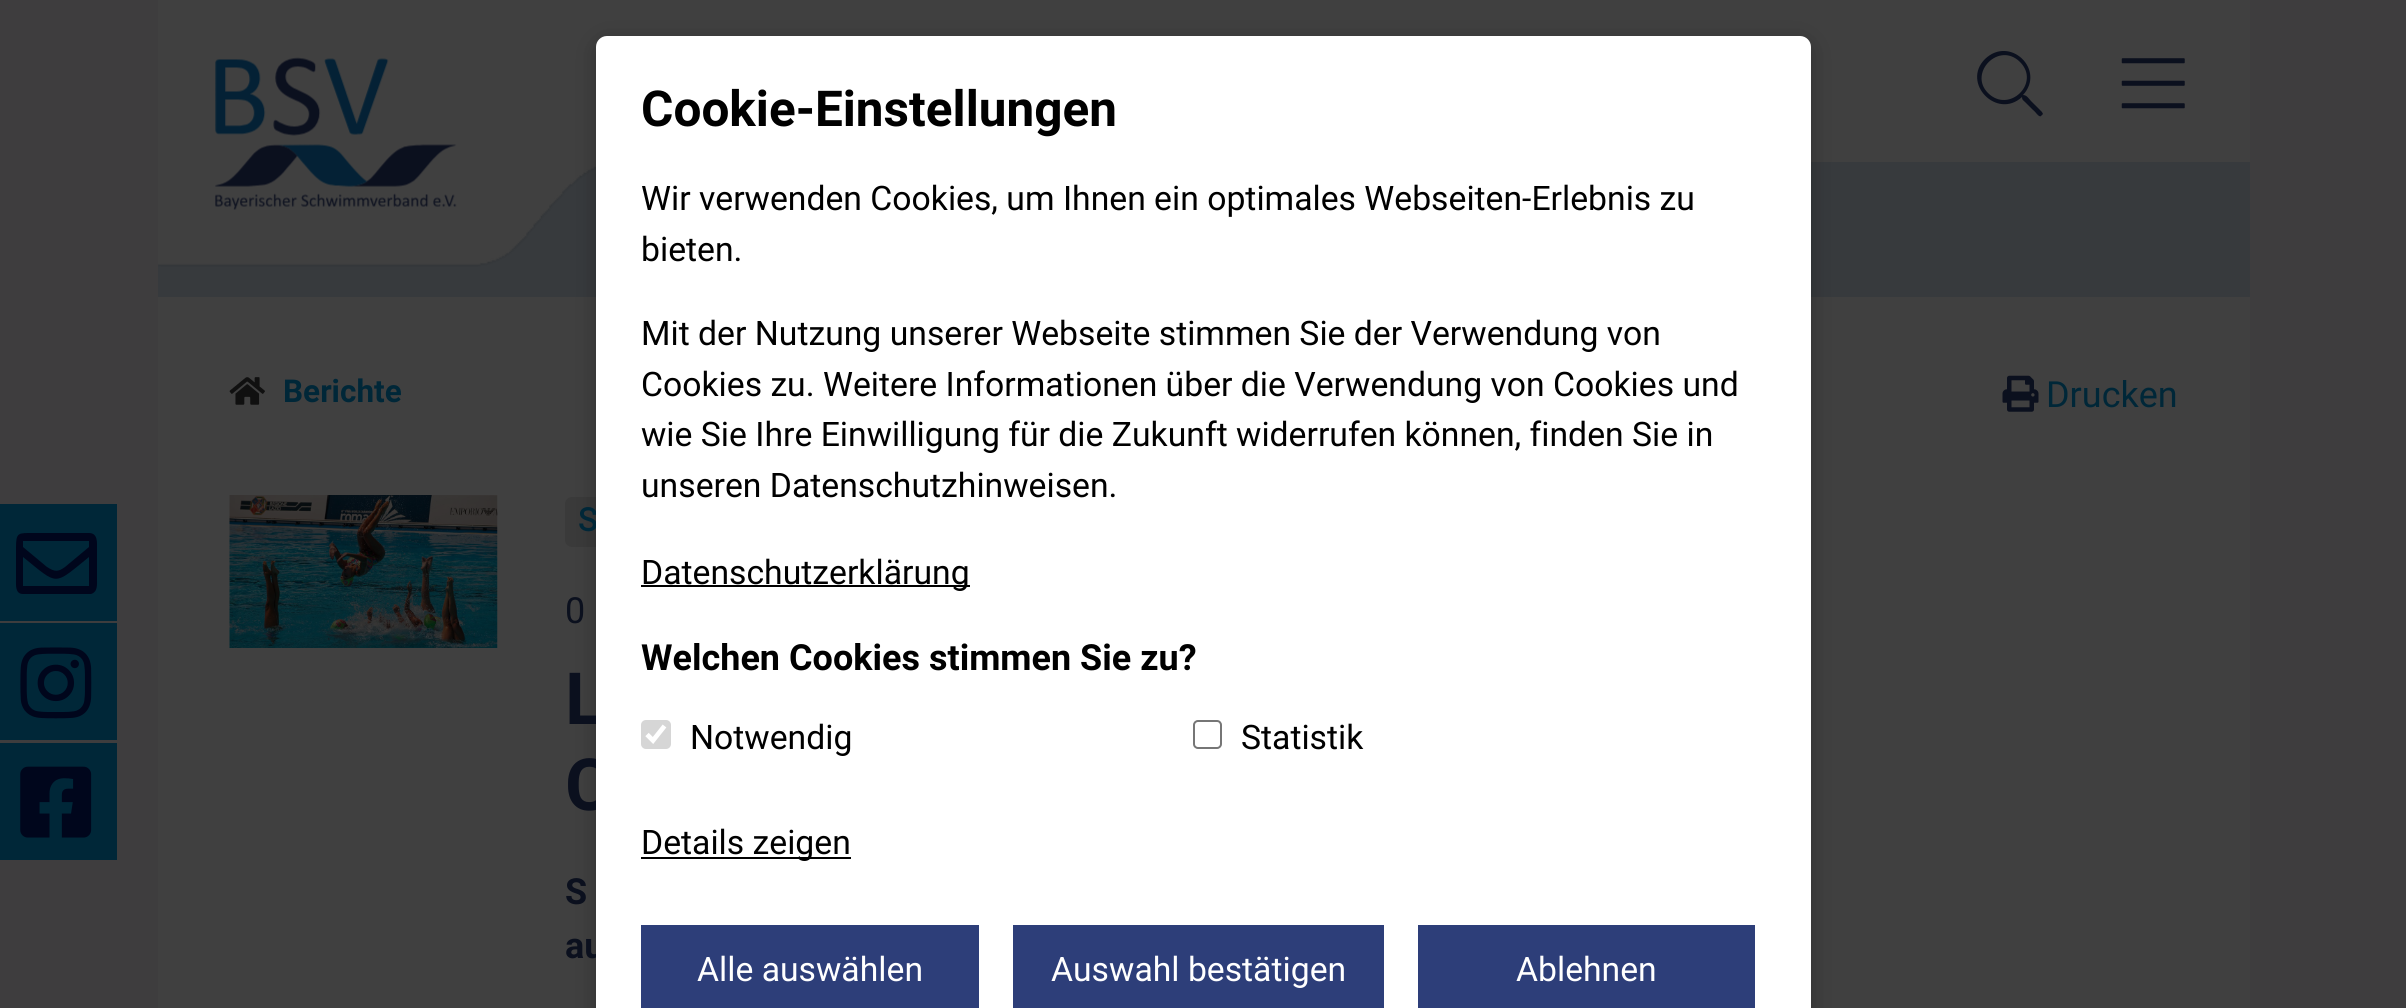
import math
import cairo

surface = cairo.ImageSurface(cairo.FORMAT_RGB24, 2406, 1008)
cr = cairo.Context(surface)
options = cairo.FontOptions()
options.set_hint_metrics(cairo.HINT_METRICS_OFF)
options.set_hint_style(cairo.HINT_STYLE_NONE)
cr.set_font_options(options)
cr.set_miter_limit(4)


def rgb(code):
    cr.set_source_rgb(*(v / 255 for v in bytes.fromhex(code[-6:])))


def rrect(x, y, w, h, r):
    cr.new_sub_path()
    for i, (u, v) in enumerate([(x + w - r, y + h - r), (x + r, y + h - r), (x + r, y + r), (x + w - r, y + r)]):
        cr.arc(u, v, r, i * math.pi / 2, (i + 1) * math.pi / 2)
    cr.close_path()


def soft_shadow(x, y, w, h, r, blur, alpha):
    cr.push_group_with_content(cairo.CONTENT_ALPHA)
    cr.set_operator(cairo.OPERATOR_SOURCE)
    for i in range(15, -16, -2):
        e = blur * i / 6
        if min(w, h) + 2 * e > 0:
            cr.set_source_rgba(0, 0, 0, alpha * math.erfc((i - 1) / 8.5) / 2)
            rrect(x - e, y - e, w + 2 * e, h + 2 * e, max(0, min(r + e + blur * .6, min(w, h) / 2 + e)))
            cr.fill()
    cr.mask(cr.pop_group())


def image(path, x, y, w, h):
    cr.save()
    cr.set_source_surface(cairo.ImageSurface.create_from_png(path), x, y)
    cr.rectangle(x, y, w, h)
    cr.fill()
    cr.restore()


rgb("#3e3d3e")
cr.paint()
rgb("#404040")
cr.rectangle(158, 0, 2092, 162)
cr.fill()
rgb("#373a3d")
cr.rectangle(158, 162, 2092, 135)
cr.fill()
image("img/1.png", 158, 161, 438, 106)
image("img/2.png", 215, 57, 242, 153)
rgb("#0b101e")
cr.new_path()
cr.move_to(2042, 112)
cr.line_to(2043, 114)
cr.line_to(2041, 116)
cr.curve_to(2039, 118, 2035, 111, 2033, 110)
cr.line_to(2025, 102)
cr.curve_to(2023, 100, 2022, 100, 2022, 97)
cr.curve_to(1997, 120, 1961, 83, 1985, 59)
cr.curve_to(2010, 35, 2046, 70, 2023, 95)
cr.curve_to(2027, 95, 2029, 99, 2031, 101)
cr.close_path()
cr.move_to(1988, 93)
cr.curve_to(2009, 114, 2041, 83, 2020, 62)
cr.curve_to(1999, 41, 1968, 73, 1988, 93)
cr.close_path()
cr.fill()
image("img/3.png", 2121, 58, 64, 51)
rgb("#404040")
cr.rectangle(158, 297, 2092, 711)
cr.fill()
rgb("#3a3a3a")
rrect(565, 497, 198, 50, 7)
cr.fill()
rgb("#000000")
soft_shadow(596, 41, 1215, 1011, 11, 11, 0.25)
rgb("#002738")
cr.rectangle(0, 504, 117, 117)
cr.fill()
rgb("#00061c")
cr.new_path()
cr.move_to(89, 533)
cr.curve_to(98, 533, 97, 543, 97, 548)
cr.line_to(97, 579)
cr.curve_to(97, 584, 98, 592, 91, 594)
cr.line_to(23, 594)
cr.curve_to(15, 594, 16, 585, 16, 579)
cr.line_to(16, 548)
cr.curve_to(16, 532, 18, 533, 34, 533)
cr.close_path()
cr.move_to(89, 541)
cr.line_to(23, 541)
cr.line_to(23, 547)
cr.line_to(47, 567)
cr.curve_to(55, 572, 58, 572, 65, 567)
cr.line_to(89, 547)
cr.close_path()
cr.move_to(23, 586)
cr.line_to(89, 586)
cr.line_to(89, 557)
cr.curve_to(53, 586, 59, 586, 23, 557)
cr.close_path()
cr.fill()
rgb("#002738")
cr.rectangle(0, 623, 117, 117)
cr.fill()
image("img/4.png", 20, 647, 72, 72)
cr.rectangle(0, 743, 117, 117)
cr.fill()
image("img/5.png", 20, 766, 72, 72)
image("img/6.png", 229, 377, 36, 28)
image("img/7.png", 2002, 375, 37, 37)
image("img/8.png", 229, 495, 269, 153)
cr.select_font_face("Roboto", cairo.FONT_SLANT_NORMAL, cairo.FONT_WEIGHT_BOLD)
cr.set_font_size(31.5)
cr.move_to(283, 402)
cr.show_text("Berichte")
cr.select_font_face("Roboto")
cr.set_font_size(36)
cr.move_to(2046, 407)
cr.show_text("Drucken")
cr.select_font_face("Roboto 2", cairo.FONT_SLANT_NORMAL, cairo.FONT_WEIGHT_BOLD)
cr.set_font_size(32)
cr.move_to(578, 531)
cr.show_text("S")
cr.select_font_face("Roboto")
cr.set_font_size(36)
rgb("#0b101e")
cr.move_to(565, 623)
cr.show_text("0")
cr.select_font_face("Roboto", cairo.FONT_SLANT_NORMAL, cairo.FONT_WEIGHT_BOLD)
cr.set_font_size(72)
cr.move_to(565, 724)
cr.show_text("L")
cr.move_to(565, 810)
cr.show_text("C")
cr.set_font_size(36)
cr.move_to(565, 904)
cr.show_text("S")
cr.move_to(565, 958)
cr.show_text("au")
rgb("#ffffff")
rrect(596, 36, 1215, 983, 11)
cr.fill()
rgb("#2d3e79")
cr.rectangle(1418, 925, 337, 83)
cr.fill()
cr.select_font_face("Roboto")
cr.set_font_size(33.75)
rgb("#ffffff")
cr.move_to(1516, 981)
cr.show_text("Ablehnen")
rgb("#2d3e79")
cr.rectangle(1013, 925, 371, 83)
cr.fill()
rgb("#ffffff")
cr.move_to(1051, 981)
cr.show_text("Auswahl bestätigen")
rgb("#2d3e79")
cr.rectangle(641, 925, 338, 83)
cr.fill()
rgb("#ffffff")
cr.move_to(697, 981)
cr.show_text("Alle auswählen")
rgb("#000000")
cr.rectangle(641, 857, 210, 2)
cr.fill()
cr.move_to(641, 854)
cr.show_text("Details zeigen")
cr.move_to(1241, 749)
cr.show_text("Statistik")
rrect(1194, 721, 27, 27, 4)
rgb("#767676")
cr.stroke()
rgb("#000000")
cr.move_to(690, 749)
cr.show_text("Notwendig")
rgb("#d6d6d6")
rrect(641, 720, 30, 29, 5)
cr.fill()
cr.new_path()
cr.move_to(647, 734.5)
cr.line_to(653, 740.5)
cr.line_to(664.5, 726)
rgb("#ffffff")
cr.set_line_width(4.7)
cr.stroke()
cr.select_font_face("Roboto", cairo.FONT_SLANT_NORMAL, cairo.FONT_WEIGHT_BOLD)
cr.set_font_size(36)
rgb("#000000")
cr.move_to(641, 670)
cr.show_text("Welchen Cookies stimmen Sie zu?")
cr.rectangle(641, 585, 329, 2)
cr.fill()
cr.select_font_face("Roboto")
cr.set_font_size(33.75)
for x, y, s in [
    (641, 584, "Datenschutzerklärung"),
    (641, 497, "unseren Datenschutzhinweisen."),
    (641, 446, "wie Sie Ihre Einwilligung für die Zukunft widerrufen können, finden Sie in"),
    (641, 396, "Cookies zu. Weitere Informationen über die Verwendung von Cookies und"),
    (641, 345, "Mit der Nutzung unserer Webseite stimmen Sie der Verwendung von"),
    (641, 261, "bieten."),
    (641, 210, "Wir verwenden Cookies, um Ihnen ein optimales Webseiten-Erlebnis zu"),
]:
    cr.move_to(x, y)
    cr.show_text(s)
cr.select_font_face("Roboto", cairo.FONT_SLANT_NORMAL, cairo.FONT_WEIGHT_BOLD)
cr.set_font_size(49.5)
cr.move_to(641, 126)
cr.show_text("Cookie-Einstellungen")
surface.write_to_png("page.png")
